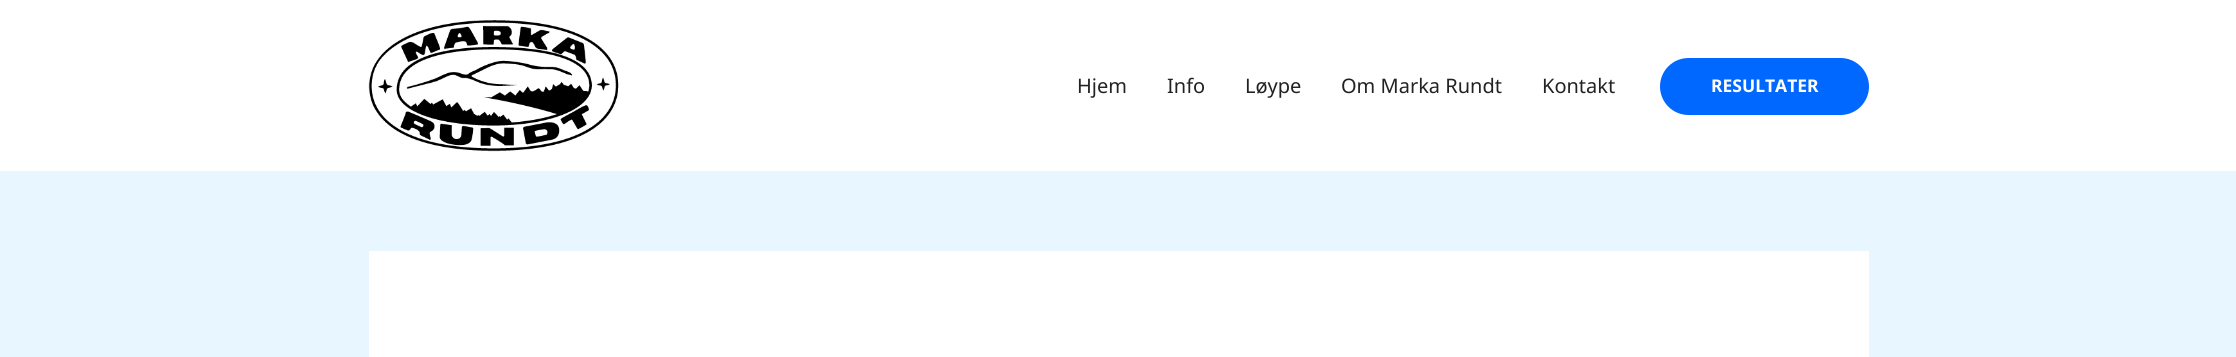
import math
import cairo

surface = cairo.ImageSurface(cairo.FORMAT_RGB24, 2236, 357)
cr = cairo.Context(surface)
options = cairo.FontOptions()
options.set_hint_metrics(cairo.HINT_METRICS_OFF)
options.set_hint_style(cairo.HINT_STYLE_NONE)
cr.set_font_options(options)
cr.set_miter_limit(4)


def rgb(code):
    cr.set_source_rgb(*(v / 255 for v in bytes.fromhex(code[-6:])))


def rrect(x, y, w, h, r):
    cr.new_sub_path()
    for i, (u, v) in enumerate([(x + w - r, y + h - r), (x + r, y + h - r), (x + r, y + r), (x + w - r, y + r)]):
        cr.arc(u, v, r, i * math.pi / 2, (i + 1) * math.pi / 2)
    cr.close_path()


def image(path, x, y, w, h):
    cr.save()
    cr.set_source_surface(cairo.ImageSurface.create_from_png(path), x, y)
    cr.rectangle(x, y, w, h)
    cr.fill()
    cr.restore()


rgb("#e7f6ff")
cr.paint()
rgb("#ffffff")
cr.rectangle(0, 0, 2236, 171)
cr.fill()
image("img/1.png", 368, 20, 251, 132)
rgb("#0067ff")
rrect(1660, 58, 209, 57, 28.5)
cr.fill()
rgb("#ffffff")
cr.rectangle(369, 251, 1500, 106)
cr.fill()
cr.select_font_face("Noto Sans")
cr.set_font_size(20)
rgb("#222222")
for x, y, s in [
    (1077, 93, "Hjem"),
    (1167, 93, "Info"),
    (1245, 93, "Løype"),
    (1341, 93, "Om Marka Rundt"),
    (1542, 93, "Kontakt"),
]:
    cr.move_to(x, y)
    cr.show_text(s)
cr.select_font_face("Noto Sans", cairo.FONT_SLANT_NORMAL, cairo.FONT_WEIGHT_BOLD)
cr.set_font_size(17.5)
rgb("#ffffff")
cr.move_to(1711, 92)
cr.show_text("RESULTATER")
surface.write_to_png("page.png")
